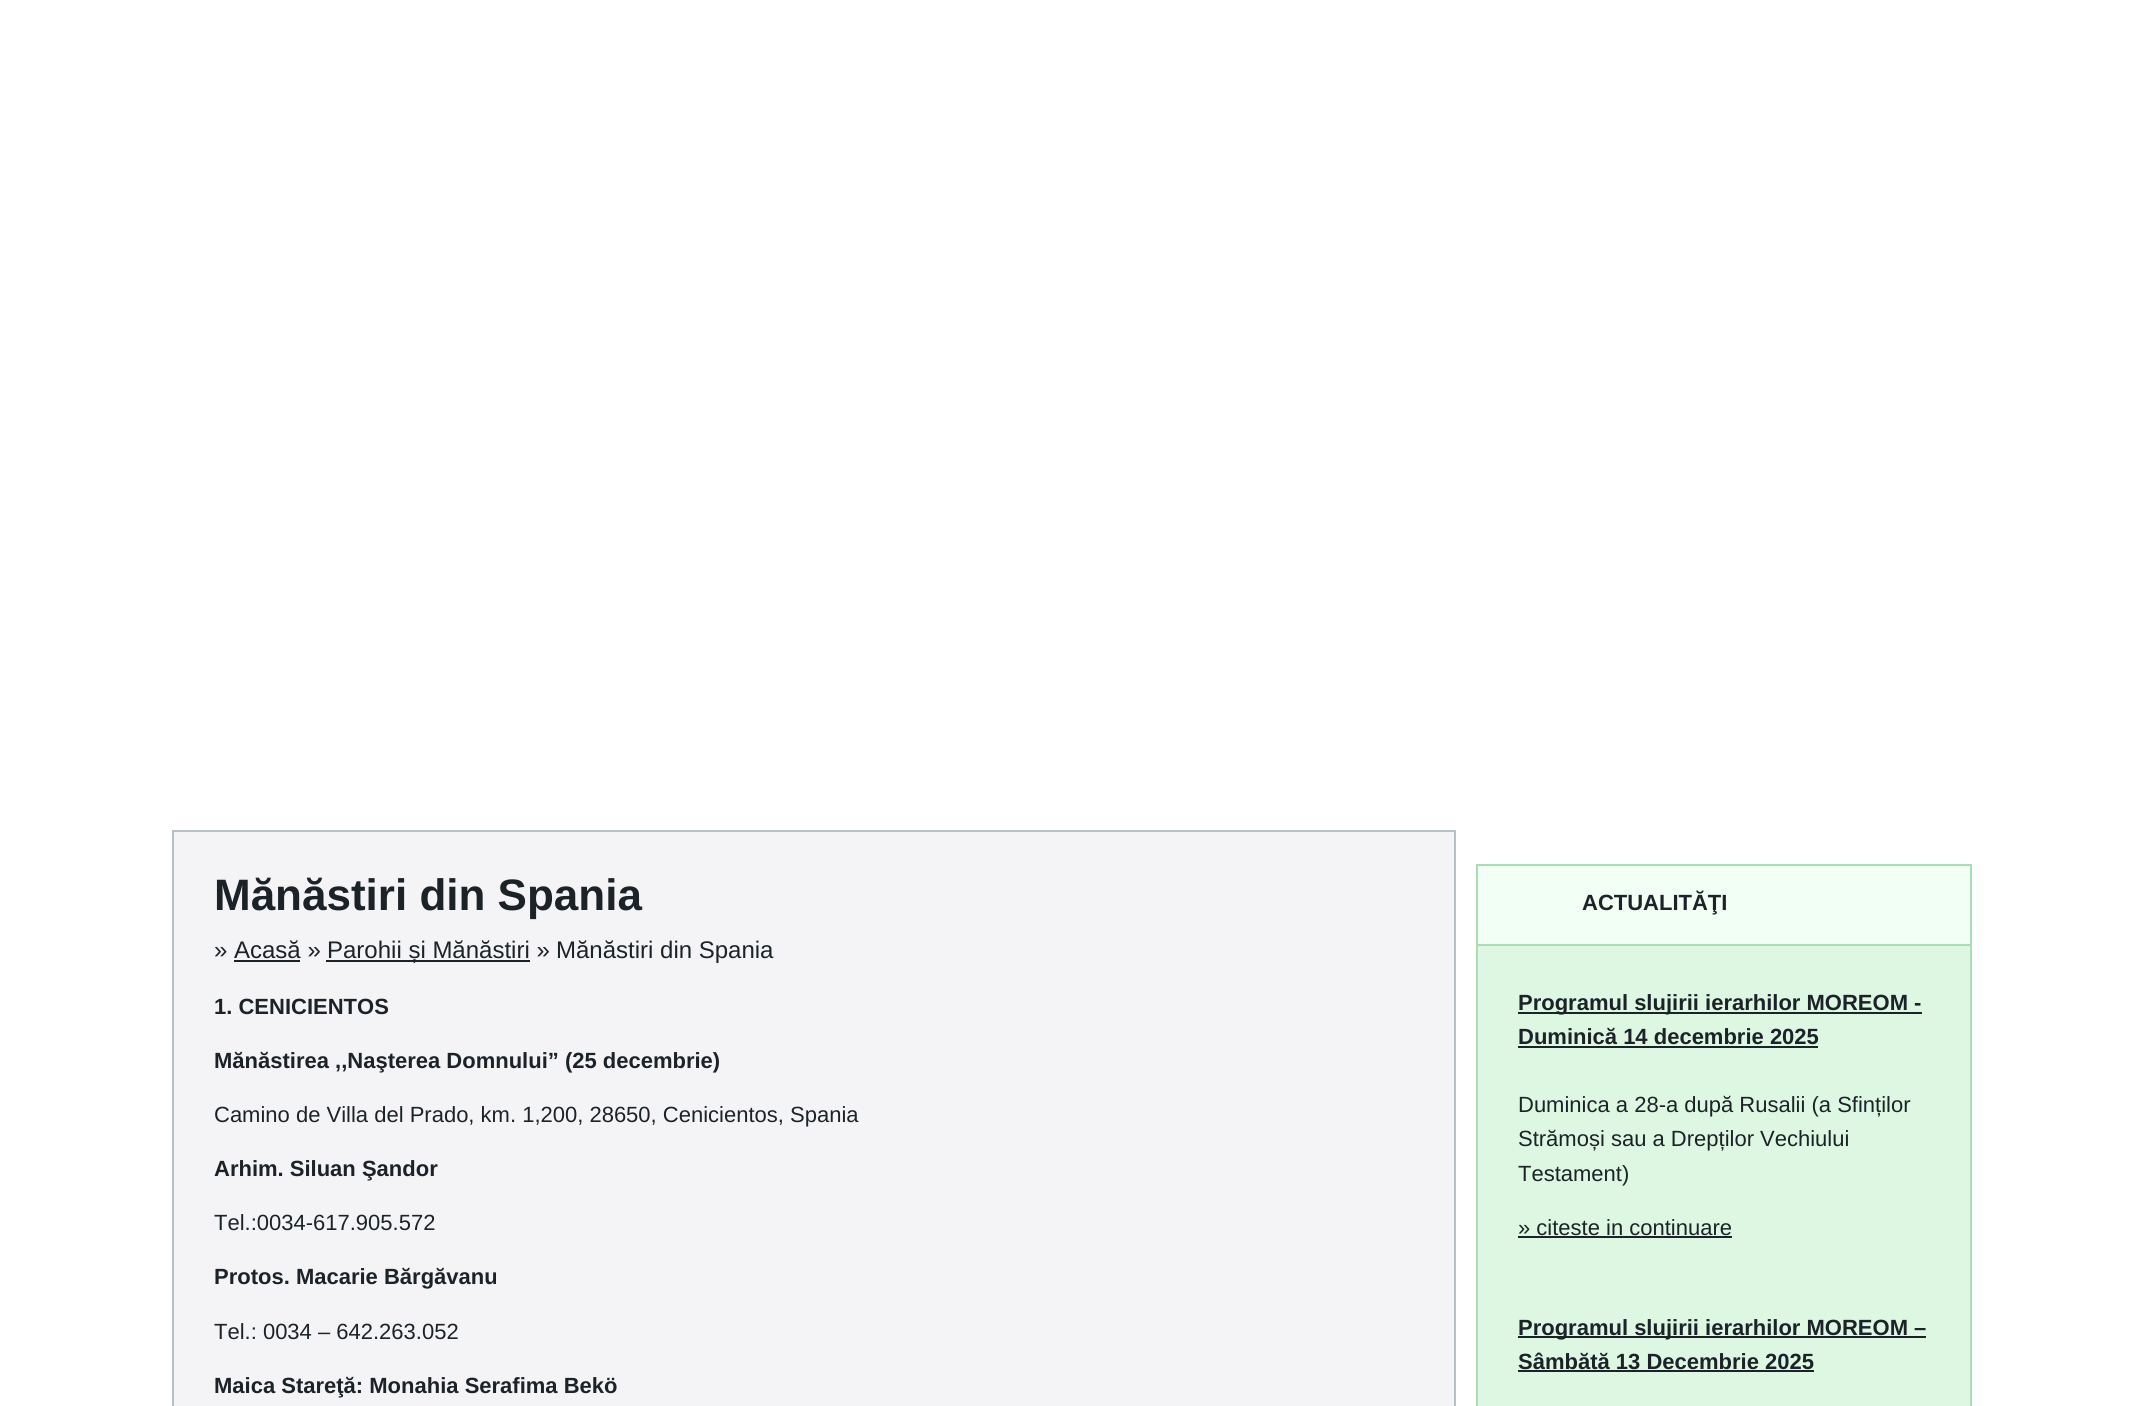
import math
import cairo

surface = cairo.ImageSurface(cairo.FORMAT_RGB24, 2144, 1406)
cr = cairo.Context(surface)
options = cairo.FontOptions()
options.set_hint_metrics(cairo.HINT_METRICS_OFF)
options.set_hint_style(cairo.HINT_STYLE_NONE)
cr.set_font_options(options)
cr.set_miter_limit(4)


def rgb(code):
    cr.set_source_rgb(*(v / 255 for v in bytes.fromhex(code[-6:])))


rgb("#ffffff")
cr.paint()
rgb("#f4f4f6")
cr.rectangle(173, 831, 1282, 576)
cr.fill_preserve()
rgb("#b7c0c5")
cr.stroke()
for x, y, w, h, color in [
    (234, 960, 66, 2, "#1c2328"),
    (326, 960, 204, 2, "#1c2328"),
    (1478, 946, 492, 460, "#ddf7e2"),
]:
    rgb(color)
    cr.rectangle(x, y, w, h)
    cr.fill()
cr.rectangle(1477, 865, 494, 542)
rgb("#aaddb5")
cr.stroke()
for x, y, w, h, color in [
    (1478, 866, 492, 78, "#f1fff4"),
    (1478, 944, 492, 2, "#aaddb5"),
    (1518, 1012, 404, 2, "#1c2328"),
    (1518, 1046, 300, 2, "#1c2328"),
    (1518, 1236, 214, 2, "#1c2328"),
    (1518, 1336, 408, 2, "#1c2328"),
    (1518, 1370, 296, 2, "#1c2328"),
]:
    rgb(color)
    cr.rectangle(x, y, w, h)
    cr.fill()
cr.select_font_face("Liberation Sans", cairo.FONT_SLANT_NORMAL, cairo.FONT_WEIGHT_BOLD)
cr.set_font_size(44)
cr.move_to(214, 910)
cr.show_text("Mănăstiri din Spania")
cr.select_font_face("Liberation Sans")
cr.set_font_size(24)
for x, y, s in [
    (214, 958, "» Acasă »"),
    (327, 958, "Parohii și Mănăstiri »"),
    (556, 958, "Mănăstiri din Spania"),
]:
    cr.move_to(x, y)
    cr.show_text(s)
cr.select_font_face("Liberation Sans", cairo.FONT_SLANT_NORMAL, cairo.FONT_WEIGHT_BOLD)
cr.set_font_size(22)
cr.move_to(214, 1014)
cr.show_text("1. CENICIENTOS")
cr.move_to(214, 1068)
cr.show_text("Mănăstirea ,,Naşterea Domnului” (25 decembrie)")
cr.select_font_face("Liberation Sans")
cr.move_to(214, 1122)
cr.show_text("Camino de Villa del Prado, km. 1,200, 28650, Cenicientos, Spania")
cr.select_font_face("Liberation Sans", cairo.FONT_SLANT_NORMAL, cairo.FONT_WEIGHT_BOLD)
cr.move_to(214, 1176)
cr.show_text("Arhim. Siluan Şandor")
cr.select_font_face("Liberation Sans")
cr.move_to(214, 1230)
cr.show_text("Tel.:0034-617.905.572")
cr.select_font_face("Liberation Sans", cairo.FONT_SLANT_NORMAL, cairo.FONT_WEIGHT_BOLD)
cr.move_to(214, 1284)
cr.show_text("Protos. Macarie Bărgăvanu")
cr.select_font_face("Liberation Sans")
cr.move_to(214, 1339)
cr.show_text("Tel.: 0034 – 642.263.052")
cr.select_font_face("Liberation Sans", cairo.FONT_SLANT_NORMAL, cairo.FONT_WEIGHT_BOLD)
for x, y, s in [
    (214, 1393, "Maica Stareţă: Monahia Serafima Bekö"),
    (1582, 910, "ACTUALITĂŢI"),
    (1518, 1010, "Programul slujirii ierarhilor MOREOM -"),
    (1518, 1044, "Duminică 14 decembrie 2025"),
]:
    cr.move_to(x, y)
    cr.show_text(s)
cr.select_font_face("Liberation Sans")
for x, y, s in [
    (1518, 1112, "Duminica a 28-a după Rusalii (a Sfinților"),
    (1518, 1146, "Strămoși sau a Drepților Vechiului"),
    (1518, 1181, "Testament)"),
    (1518, 1235, "» citeste in continuare"),
]:
    cr.move_to(x, y)
    cr.show_text(s)
cr.select_font_face("Liberation Sans", cairo.FONT_SLANT_NORMAL, cairo.FONT_WEIGHT_BOLD)
cr.move_to(1518, 1335)
cr.show_text("Programul slujirii ierarhilor MOREOM –")
cr.move_to(1518, 1369)
cr.show_text("Sâmbătă 13 Decembrie 2025")
surface.write_to_png("page.png")
